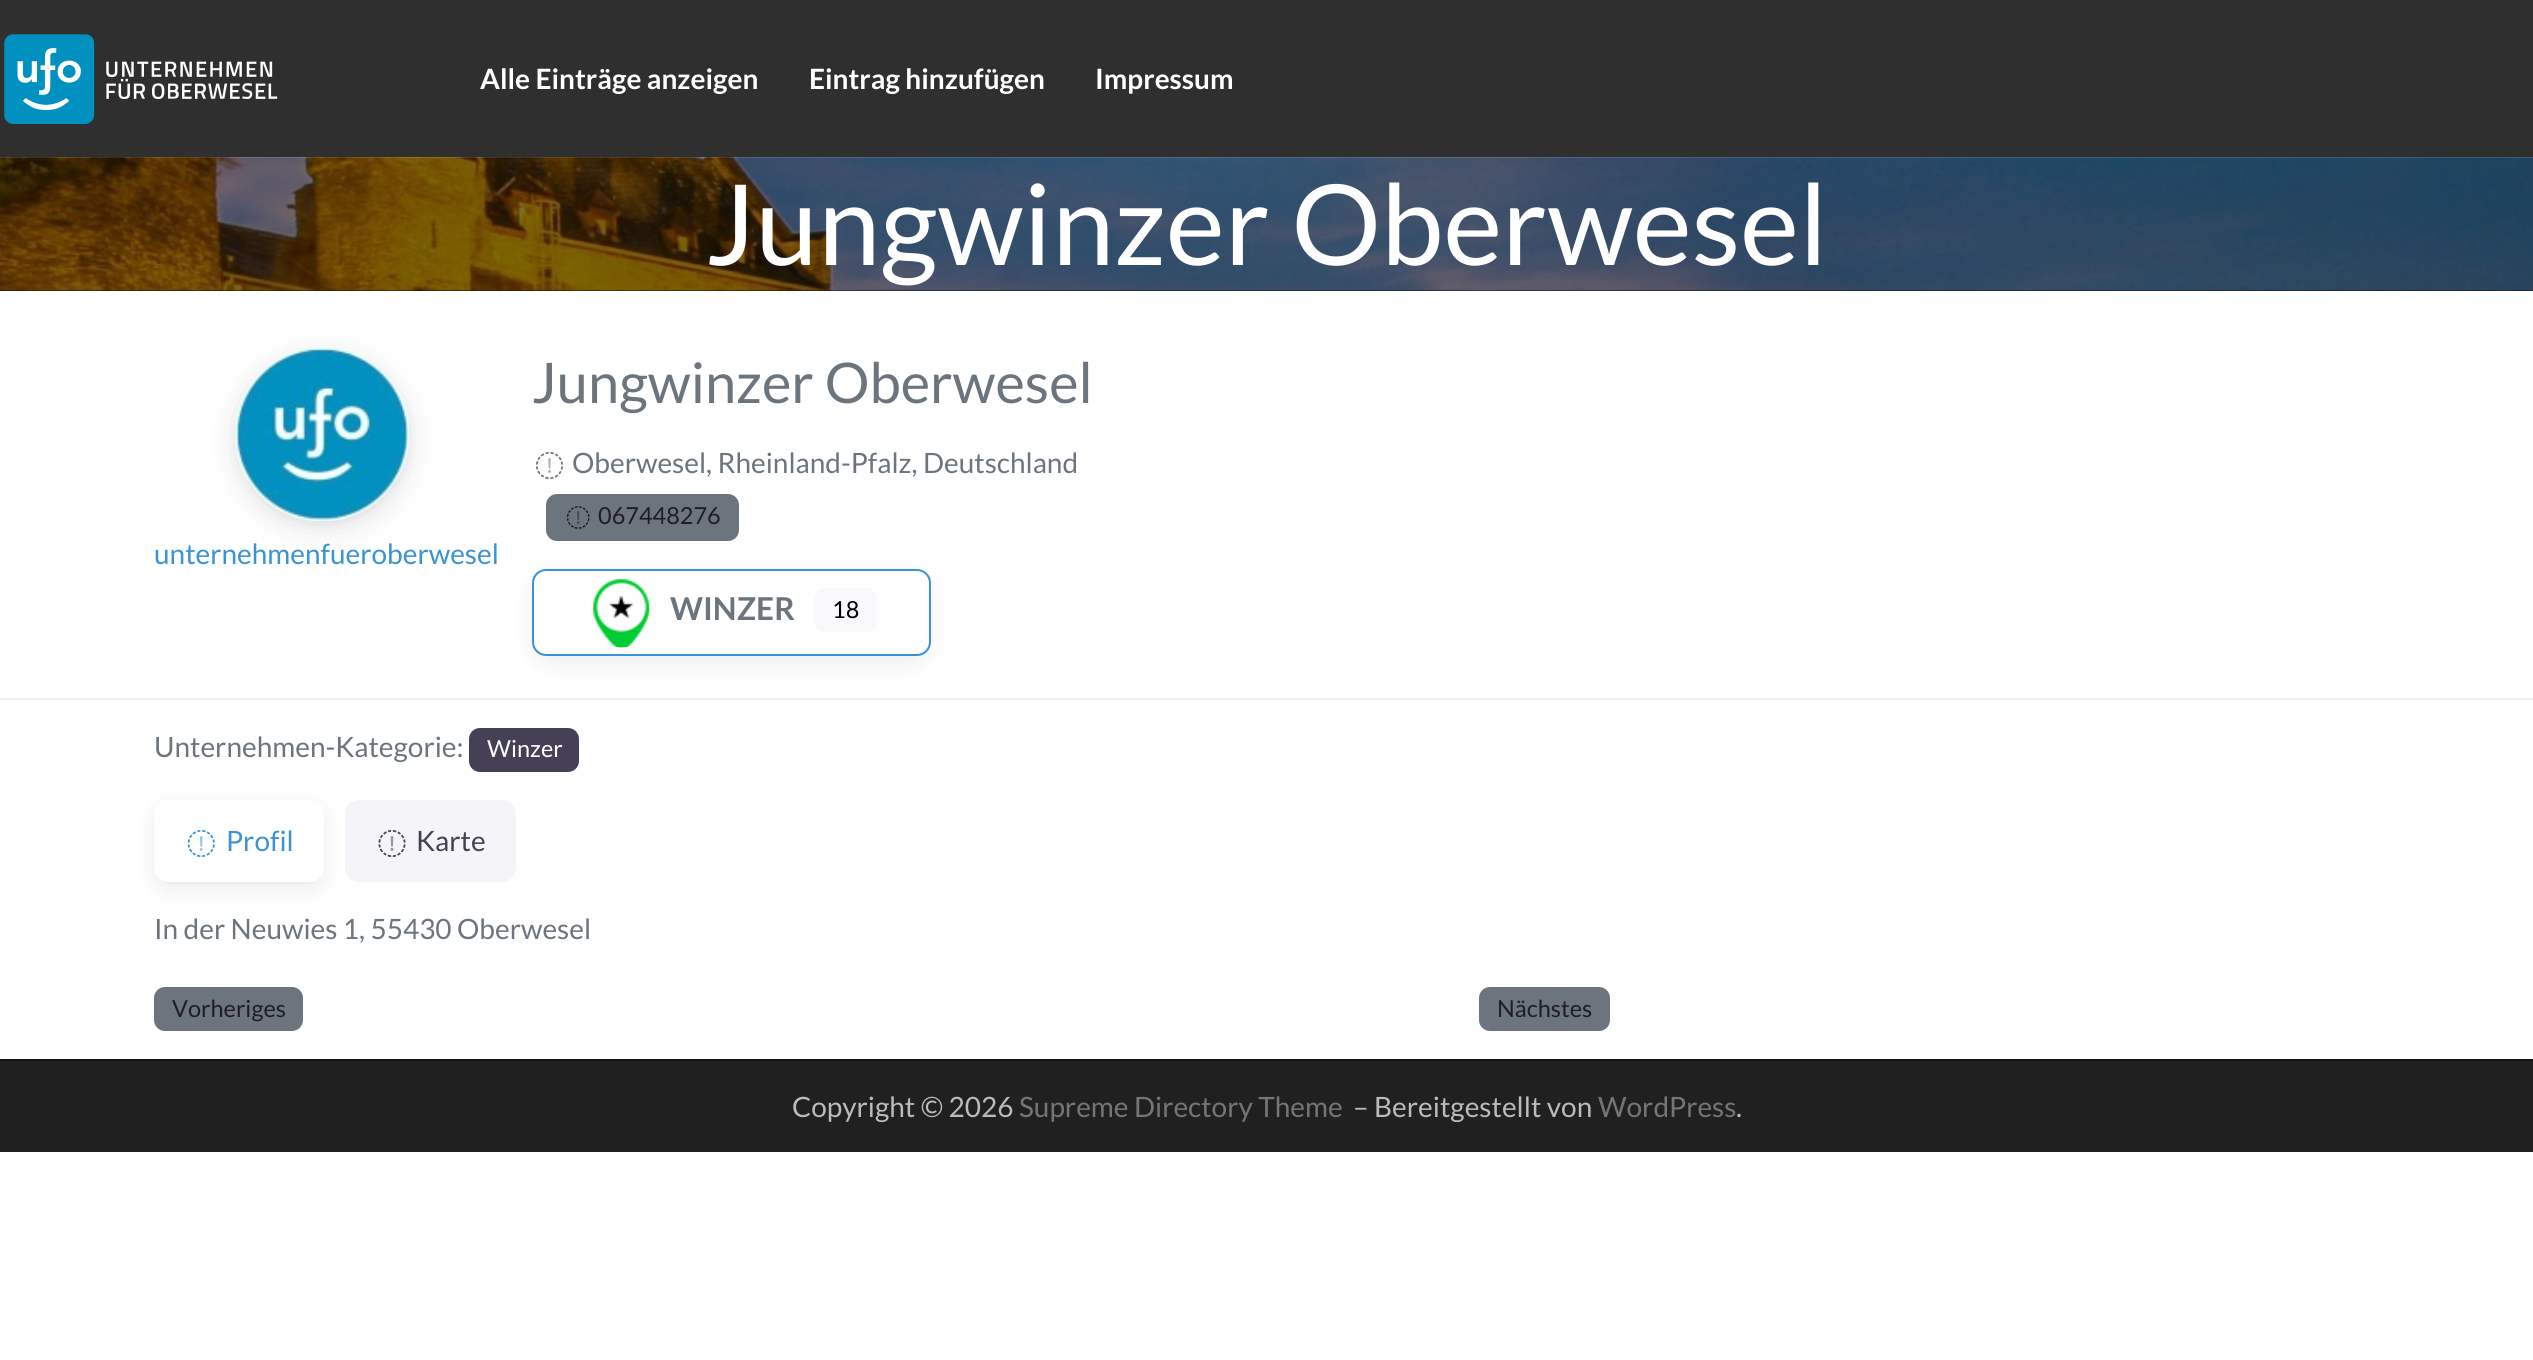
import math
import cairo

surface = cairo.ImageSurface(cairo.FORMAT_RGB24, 2533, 1360)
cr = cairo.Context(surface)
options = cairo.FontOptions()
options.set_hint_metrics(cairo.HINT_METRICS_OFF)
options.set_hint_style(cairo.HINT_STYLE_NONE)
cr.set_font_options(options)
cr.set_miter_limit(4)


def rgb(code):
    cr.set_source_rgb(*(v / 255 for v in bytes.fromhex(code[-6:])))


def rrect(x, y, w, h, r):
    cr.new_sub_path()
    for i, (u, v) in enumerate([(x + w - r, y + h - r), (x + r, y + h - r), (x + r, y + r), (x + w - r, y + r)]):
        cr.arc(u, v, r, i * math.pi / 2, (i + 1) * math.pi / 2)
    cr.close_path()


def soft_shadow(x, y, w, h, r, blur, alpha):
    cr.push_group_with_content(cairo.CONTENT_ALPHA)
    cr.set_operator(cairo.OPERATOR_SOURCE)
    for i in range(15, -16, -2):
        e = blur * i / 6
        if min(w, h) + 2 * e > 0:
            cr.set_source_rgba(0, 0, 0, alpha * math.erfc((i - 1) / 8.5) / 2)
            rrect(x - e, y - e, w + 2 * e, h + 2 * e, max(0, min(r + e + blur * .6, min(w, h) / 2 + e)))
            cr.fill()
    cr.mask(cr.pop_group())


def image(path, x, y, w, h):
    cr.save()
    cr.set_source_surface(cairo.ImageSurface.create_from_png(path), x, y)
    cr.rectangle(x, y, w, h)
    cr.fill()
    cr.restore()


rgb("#ffffff")
cr.paint()
rgb("#2f2f2f")
cr.rectangle(0, 0, 2533, 158)
cr.fill()
image("img/1.png", 4, 34, 274, 90)
rgb("#111016")
cr.rectangle(0, 290, 2533, 1)
cr.fill()
image("img/2.png", 0, 157, 2533, 134)
rgb("#efecf3")
cr.rectangle(0, 698, 2533, 2)
cr.fill()
rgb("#1f1b2d")
soft_shadow(235, 354, 175, 175, 87.5, 14, 0.12)
soft_shadow(242, 357, 161, 161, 80.5, 7, 0.12)
image("img/3.png", 235, 347, 174, 174)
image("img/4.png", 536, 452, 27, 27)
rgb("#6c757d")
rrect(546, 494, 193, 47, 11)
cr.fill()
image("img/5.png", 566, 506, 24, 23)
cr.save()
cr.set_fill_rule(cairo.FILL_RULE_EVEN_ODD)
cr.new_path()
cr.move_to(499, 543)
cr.line_to(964, 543)
cr.line_to(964, 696)
cr.line_to(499, 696)
cr.close_path()
cr.move_to(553, 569)
cr.line_to(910, 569)
cr.curve_to(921.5, 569, 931, 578.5, 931, 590)
cr.line_to(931, 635)
cr.curve_to(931, 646.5, 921.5, 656, 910, 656)
cr.line_to(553, 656)
cr.curve_to(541.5, 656, 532, 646.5, 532, 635)
cr.line_to(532, 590)
cr.curve_to(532, 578.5, 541.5, 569, 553, 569)
cr.close_path()
cr.clip()
rgb("#1f1b2d")
soft_shadow(532, 576, 399, 87, 21, 10.5, 0.08)
cr.restore()
rrect(533, 570, 397, 85, 13)
rgb("#3993d5")
cr.stroke()
image("img/6.png", 593, 579, 57, 69)
rgb("#f9f8fa")
rrect(814, 588, 63, 44, 11)
cr.fill()
rgb("#454056")
rrect(469, 728, 110, 44, 11)
cr.fill()
rgb("#1f1b2d")
soft_shadow(154, 807, 170, 82, 14, 10.5, 0.08)
soft_shadow(158, 807, 162, 75, 11, 2, 0.08)
rgb("#ffffff")
rrect(154, 800, 170, 82, 14)
cr.fill()
image("img/7.png", 187, 830, 28, 27)
rgb("#f5f4f8")
rrect(345, 800, 171, 82, 14)
cr.fill()
image("img/8.png", 378, 830, 28, 27)
rgb("#6c757d")
rrect(154, 987, 149, 44, 11)
cr.fill()
rrect(1479, 987, 131, 44, 11)
cr.fill()
rgb("#202020")
cr.rectangle(0, 1061, 2533, 91)
cr.fill()
rgb("#151515")
cr.rectangle(0, 1059, 2533, 2)
cr.fill()
cr.select_font_face("Lato", cairo.FONT_SLANT_NORMAL, cairo.FONT_WEIGHT_BOLD)
cr.set_font_size(28)
rgb("#ffffff")
for x, y, s in [
    (480, 89, "Alle Einträge anzeigen"),
    (809, 89, "Eintrag hinzufügen"),
    (1095, 89, "Impressum"),
]:
    cr.move_to(x, y)
    cr.show_text(s)
cr.select_font_face("Lato")
cr.set_font_size(112)
cr.move_to(706, 265)
cr.show_text("Jungwinzer Oberwesel")
cr.set_font_size(28)
rgb("#3993d5")
cr.move_to(154, 564)
cr.show_text("unternehmenfueroberwesel")
cr.set_font_size(56)
rgb("#6c757d")
cr.move_to(532, 403)
cr.show_text("Jungwinzer Oberwesel")
cr.set_font_size(28)
cr.move_to(572, 473)
cr.show_text("Oberwesel, Rheinland-Pfalz, Deutschland")
cr.set_font_size(23.5)
rgb("#1f1b2d")
cr.move_to(598, 524)
cr.show_text("067448276")
cr.select_font_face("Lato", cairo.FONT_SLANT_NORMAL, cairo.FONT_WEIGHT_BOLD)
cr.set_font_size(31.5)
rgb("#6c757d")
cr.move_to(670, 620)
cr.show_text("WINZER")
cr.select_font_face("Lato")
cr.set_font_size(23.5)
rgb("#000000")
cr.move_to(832, 618)
cr.show_text("18")
cr.set_font_size(28)
rgb("#6c757d")
cr.move_to(154, 757)
cr.show_text("Unternehmen-Kategorie:")
cr.set_font_size(23.5)
rgb("#ffffff")
cr.move_to(487, 757)
cr.show_text("Winzer")
cr.set_font_size(28)
rgb("#3993d5")
cr.move_to(226, 851)
cr.show_text("Profil")
rgb("#454056")
cr.move_to(416, 851)
cr.show_text("Karte")
rgb("#6c757d")
cr.move_to(154, 939)
cr.show_text("In der Neuwies 1, 55430 Oberwesel")
cr.set_font_size(23.5)
rgb("#1f1b2d")
cr.move_to(172, 1017)
cr.show_text("Vorheriges")
cr.move_to(1497, 1017)
cr.show_text("Nächstes")
cr.set_font_size(28)
rgb("#bbbbbb")
cr.move_to(792, 1117)
cr.show_text("Copyright © 2026")
rgb("#757575")
cr.move_to(1019, 1117)
cr.show_text("Supreme Directory Theme")
rgb("#bbbbbb")
cr.move_to(1353, 1117)
cr.show_text("– Bereitgestellt von")
rgb("#757575")
cr.move_to(1598, 1117)
cr.show_text("WordPress")
rgb("#bbbbbb")
cr.move_to(1736, 1117)
cr.show_text(".")
surface.write_to_png("page.png")
